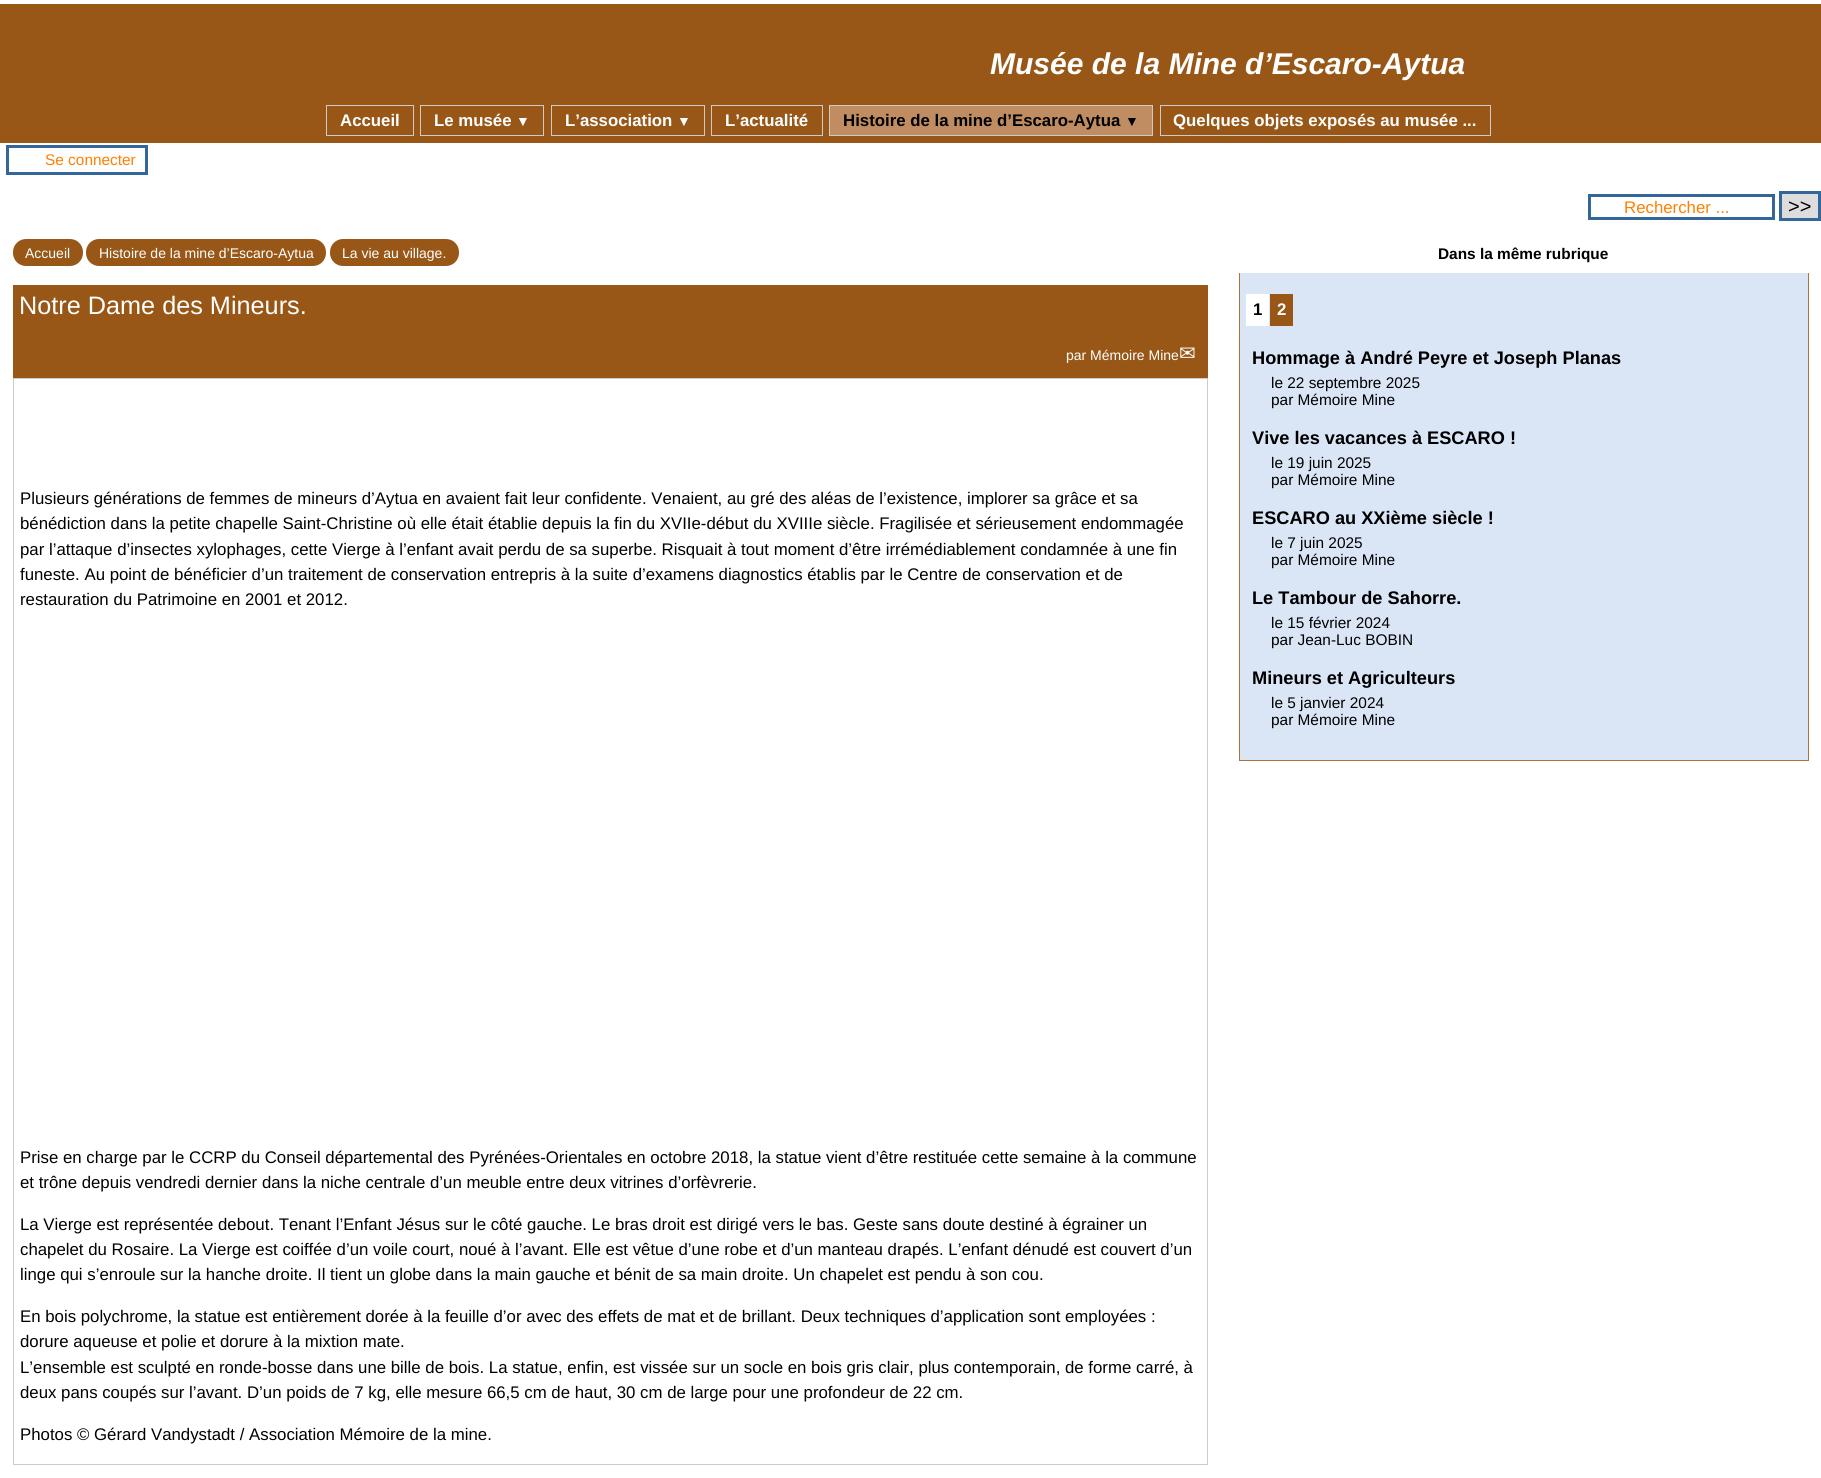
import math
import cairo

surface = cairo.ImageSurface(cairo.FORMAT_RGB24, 1821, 1478)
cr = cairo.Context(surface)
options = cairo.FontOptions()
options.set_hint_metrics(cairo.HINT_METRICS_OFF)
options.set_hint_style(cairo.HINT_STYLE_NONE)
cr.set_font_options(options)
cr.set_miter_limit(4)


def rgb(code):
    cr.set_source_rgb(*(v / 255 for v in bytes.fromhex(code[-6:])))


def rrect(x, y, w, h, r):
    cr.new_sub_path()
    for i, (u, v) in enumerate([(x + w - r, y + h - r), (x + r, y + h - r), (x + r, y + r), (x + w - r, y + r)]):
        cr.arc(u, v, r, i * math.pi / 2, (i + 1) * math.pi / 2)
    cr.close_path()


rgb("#ffffff")
cr.paint()
rgb("#985717")
cr.rectangle(0, 4, 1821, 139)
cr.fill()
cr.rectangle(326.5, 105.5, 87, 30)
rgb("#cccccc")
cr.set_line_width(1)
cr.stroke()
cr.rectangle(420.5, 105.5, 123, 30)
cr.stroke()
cr.rectangle(551.5, 105.5, 153, 30)
cr.stroke()
cr.rectangle(711.5, 105.5, 111, 30)
cr.stroke()
rgb("#c08c62")
cr.rectangle(829.5, 105.5, 323, 30)
cr.fill_preserve()
rgb("#cccccc")
cr.stroke()
cr.rectangle(1160.5, 105.5, 330, 30)
cr.stroke()
cr.rectangle(7.5, 146.5, 139, 27)
rgb("#336699")
cr.set_line_width(3)
cr.stroke()
rgb("#985717")
rrect(13, 239, 70, 27, 13)
cr.fill()
rrect(86, 239, 240, 27, 13)
cr.fill()
rrect(330, 239, 129, 27, 13)
cr.fill()
cr.rectangle(13, 285, 1195, 93)
cr.fill()
cr.rectangle(13.5, 378.5, 1194, 1086)
rgb("#cccccc")
cr.set_line_width(1)
cr.stroke()
cr.rectangle(1589.5, 195.5, 184, 23)
rgb("#336699")
cr.set_line_width(3)
cr.stroke()
rgb("#dddddd")
cr.rectangle(1780.5, 192.5, 39, 27)
cr.fill_preserve()
rgb("#336699")
cr.stroke()
for x, y, w, h, color in [
    (1240, 273, 568, 487, "#dae6f6"),
    (1808, 273, 1, 488, "#ad713d"),
    (1239, 760, 570, 1, "#ad713d"),
    (1239, 273, 1, 488, "#ad713d"),
    (1246, 294, 23, 32, "#ffffff"),
    (1270, 294, 23, 32, "#985717"),
]:
    rgb(color)
    cr.rectangle(x, y, w, h)
    cr.fill()
cr.select_font_face("Liberation Sans", cairo.FONT_SLANT_ITALIC, cairo.FONT_WEIGHT_BOLD)
cr.set_font_size(30)
rgb("#ffffff")
cr.move_to(990, 74)
cr.show_text("Musée de la Mine d’Escaro-Aytua")
cr.select_font_face("Liberation Sans", cairo.FONT_SLANT_NORMAL, cairo.FONT_WEIGHT_BOLD)
cr.set_font_size(16.8)
cr.move_to(340, 126)
cr.show_text("Accueil")
cr.move_to(434, 126)
cr.show_text("Le musée")
cr.set_font_size(14)
cr.move_to(516, 126)
cr.show_text("▼")
cr.set_font_size(16.8)
cr.move_to(565, 126)
cr.show_text("L’association")
cr.set_font_size(14)
cr.move_to(677, 126)
cr.show_text("▼")
cr.set_font_size(16.8)
cr.move_to(725, 126)
cr.show_text("L’actualité")
rgb("#000000")
cr.move_to(843, 126)
cr.show_text("Histoire de la mine d’Escaro-Aytua")
cr.set_font_size(14)
cr.move_to(1125, 126)
cr.show_text("▼")
cr.set_font_size(16.8)
rgb("#ffffff")
cr.move_to(1173, 126)
cr.show_text("Quelques objets exposés au musée ...")
cr.select_font_face("Liberation Sans")
cr.set_font_size(15.4)
rgb("#ff8000")
cr.move_to(45, 165)
cr.show_text("Se connecter")
cr.set_font_size(14)
rgb("#ffffff")
for x, y, s in [
    (25, 258, "Accueil"),
    (99, 258, "Histoire de la mine d’Escaro-Aytua"),
    (342, 258, "La vie au village."),
]:
    cr.move_to(x, y)
    cr.show_text(s)
cr.set_font_size(25.25)
cr.move_to(19, 314)
cr.show_text("Notre Dame des Mineurs.")
cr.set_font_size(14)
cr.move_to(1066, 360)
cr.show_text("par Mémoire Mine")
cr.select_font_face("DejaVu Sans")
cr.set_font_size(20)
cr.move_to(1179, 360)
cr.show_text("✉")
cr.select_font_face("Liberation Sans")
cr.set_font_size(16.8)
rgb("#000000")
for x, y, s in [
    (20, 504, "Plusieurs générations de femmes de mineurs d’Aytua en avaient fait leur confidente. Venaient, au gré des aléas de l’existence, implorer sa grâce et sa"),
    (20, 529, "bénédiction dans la petite chapelle Saint-Christine où elle était établie depuis la fin du XVIIe-début du XVIIIe siècle. Fragilisée et sérieusement endommagée"),
    (20, 555, "par l’attaque d’insectes xylophages, cette Vierge à l’enfant avait perdu de sa superbe. Risquait à tout moment d’être irrémédiablement condamnée à une fin"),
    (20, 580, "funeste. Au point de bénéficier d’un traitement de conservation entrepris à la suite d’examens diagnostics établis par le Centre de conservation et de"),
    (20, 605, "restauration du Patrimoine en 2001 et 2012."),
    (20, 1163, "Prise en charge par le CCRP du Conseil départemental des Pyrénées-Orientales en octobre 2018, la statue vient d’être restituée cette semaine à la commune"),
    (20, 1188, "et trône depuis vendredi dernier dans la niche centrale d’un meuble entre deux vitrines d’orfèvrerie."),
    (20, 1230, "La Vierge est représentée debout. Tenant l’Enfant Jésus sur le côté gauche. Le bras droit est dirigé vers le bas. Geste sans doute destiné à égrainer un"),
    (20, 1255, "chapelet du Rosaire. La Vierge est coiffée d’un voile court, noué à l’avant. Elle est vêtue d’une robe et d’un manteau drapés. L’enfant dénudé est couvert d’un"),
    (20, 1280, "linge qui s’enroule sur la hanche droite. Il tient un globe dans la main gauche et bénit de sa main droite. Un chapelet est pendu à son cou."),
    (20, 1322, "En bois polychrome, la statue est entièrement dorée à la feuille d’or avec des effets de mat et de brillant. Deux techniques d’application sont employées :"),
    (20, 1347, "dorure aqueuse et polie et dorure à la mixtion mate."),
    (20, 1373, "L’ensemble est sculpté en ronde-bosse dans une bille de bois. La statue, enfin, est vissée sur un socle en bois gris clair, plus contemporain, de forme carré, à"),
    (20, 1398, "deux pans coupés sur l’avant. D’un poids de 7 kg, elle mesure 66,5 cm de haut, 30 cm de large pour une profondeur de 22 cm."),
    (20, 1440, "Photos © Gérard Vandystadt / Association Mémoire de la mine."),
]:
    cr.move_to(x, y)
    cr.show_text(s)
rgb("#ff8000")
cr.move_to(1624, 213)
cr.show_text("Rechercher ...")
cr.set_font_size(20)
rgb("#000000")
cr.move_to(1788, 213)
cr.show_text(">>")
cr.select_font_face("Liberation Sans", cairo.FONT_SLANT_NORMAL, cairo.FONT_WEIGHT_BOLD)
cr.set_font_size(15.4)
cr.move_to(1438, 259)
cr.show_text("Dans la même rubrique")
cr.set_font_size(16.8)
cr.move_to(1253, 315)
cr.show_text("1")
rgb("#ffffff")
cr.move_to(1277, 315)
cr.show_text("2")
cr.set_font_size(18.2)
rgb("#000000")
cr.move_to(1252, 364)
cr.show_text("Hommage à André Peyre et Joseph Planas")
cr.select_font_face("Liberation Sans")
cr.set_font_size(15.4)
cr.move_to(1271, 388)
cr.show_text("le 22 septembre 2025")
cr.move_to(1271, 405)
cr.show_text("par Mémoire Mine")
cr.select_font_face("Liberation Sans", cairo.FONT_SLANT_NORMAL, cairo.FONT_WEIGHT_BOLD)
cr.set_font_size(18.2)
cr.move_to(1252, 444)
cr.show_text("Vive les vacances à ESCARO !")
cr.select_font_face("Liberation Sans")
cr.set_font_size(15.4)
cr.move_to(1271, 468)
cr.show_text("le 19 juin 2025")
cr.move_to(1271, 485)
cr.show_text("par Mémoire Mine")
cr.select_font_face("Liberation Sans", cairo.FONT_SLANT_NORMAL, cairo.FONT_WEIGHT_BOLD)
cr.set_font_size(18.2)
cr.move_to(1252, 524)
cr.show_text("ESCARO au XXième siècle !")
cr.select_font_face("Liberation Sans")
cr.set_font_size(15.4)
cr.move_to(1271, 548)
cr.show_text("le 7 juin 2025")
cr.move_to(1271, 565)
cr.show_text("par Mémoire Mine")
cr.select_font_face("Liberation Sans", cairo.FONT_SLANT_NORMAL, cairo.FONT_WEIGHT_BOLD)
cr.set_font_size(18.2)
cr.move_to(1252, 604)
cr.show_text("Le Tambour de Sahorre.")
cr.select_font_face("Liberation Sans")
cr.set_font_size(15.4)
cr.move_to(1271, 628)
cr.show_text("le 15 février 2024")
cr.move_to(1271, 645)
cr.show_text("par Jean-Luc BOBIN")
cr.select_font_face("Liberation Sans", cairo.FONT_SLANT_NORMAL, cairo.FONT_WEIGHT_BOLD)
cr.set_font_size(18.2)
cr.move_to(1252, 684)
cr.show_text("Mineurs et Agriculteurs")
cr.select_font_face("Liberation Sans")
cr.set_font_size(15.4)
cr.move_to(1271, 708)
cr.show_text("le 5 janvier 2024")
cr.move_to(1271, 725)
cr.show_text("par Mémoire Mine")
surface.write_to_png("page.png")
